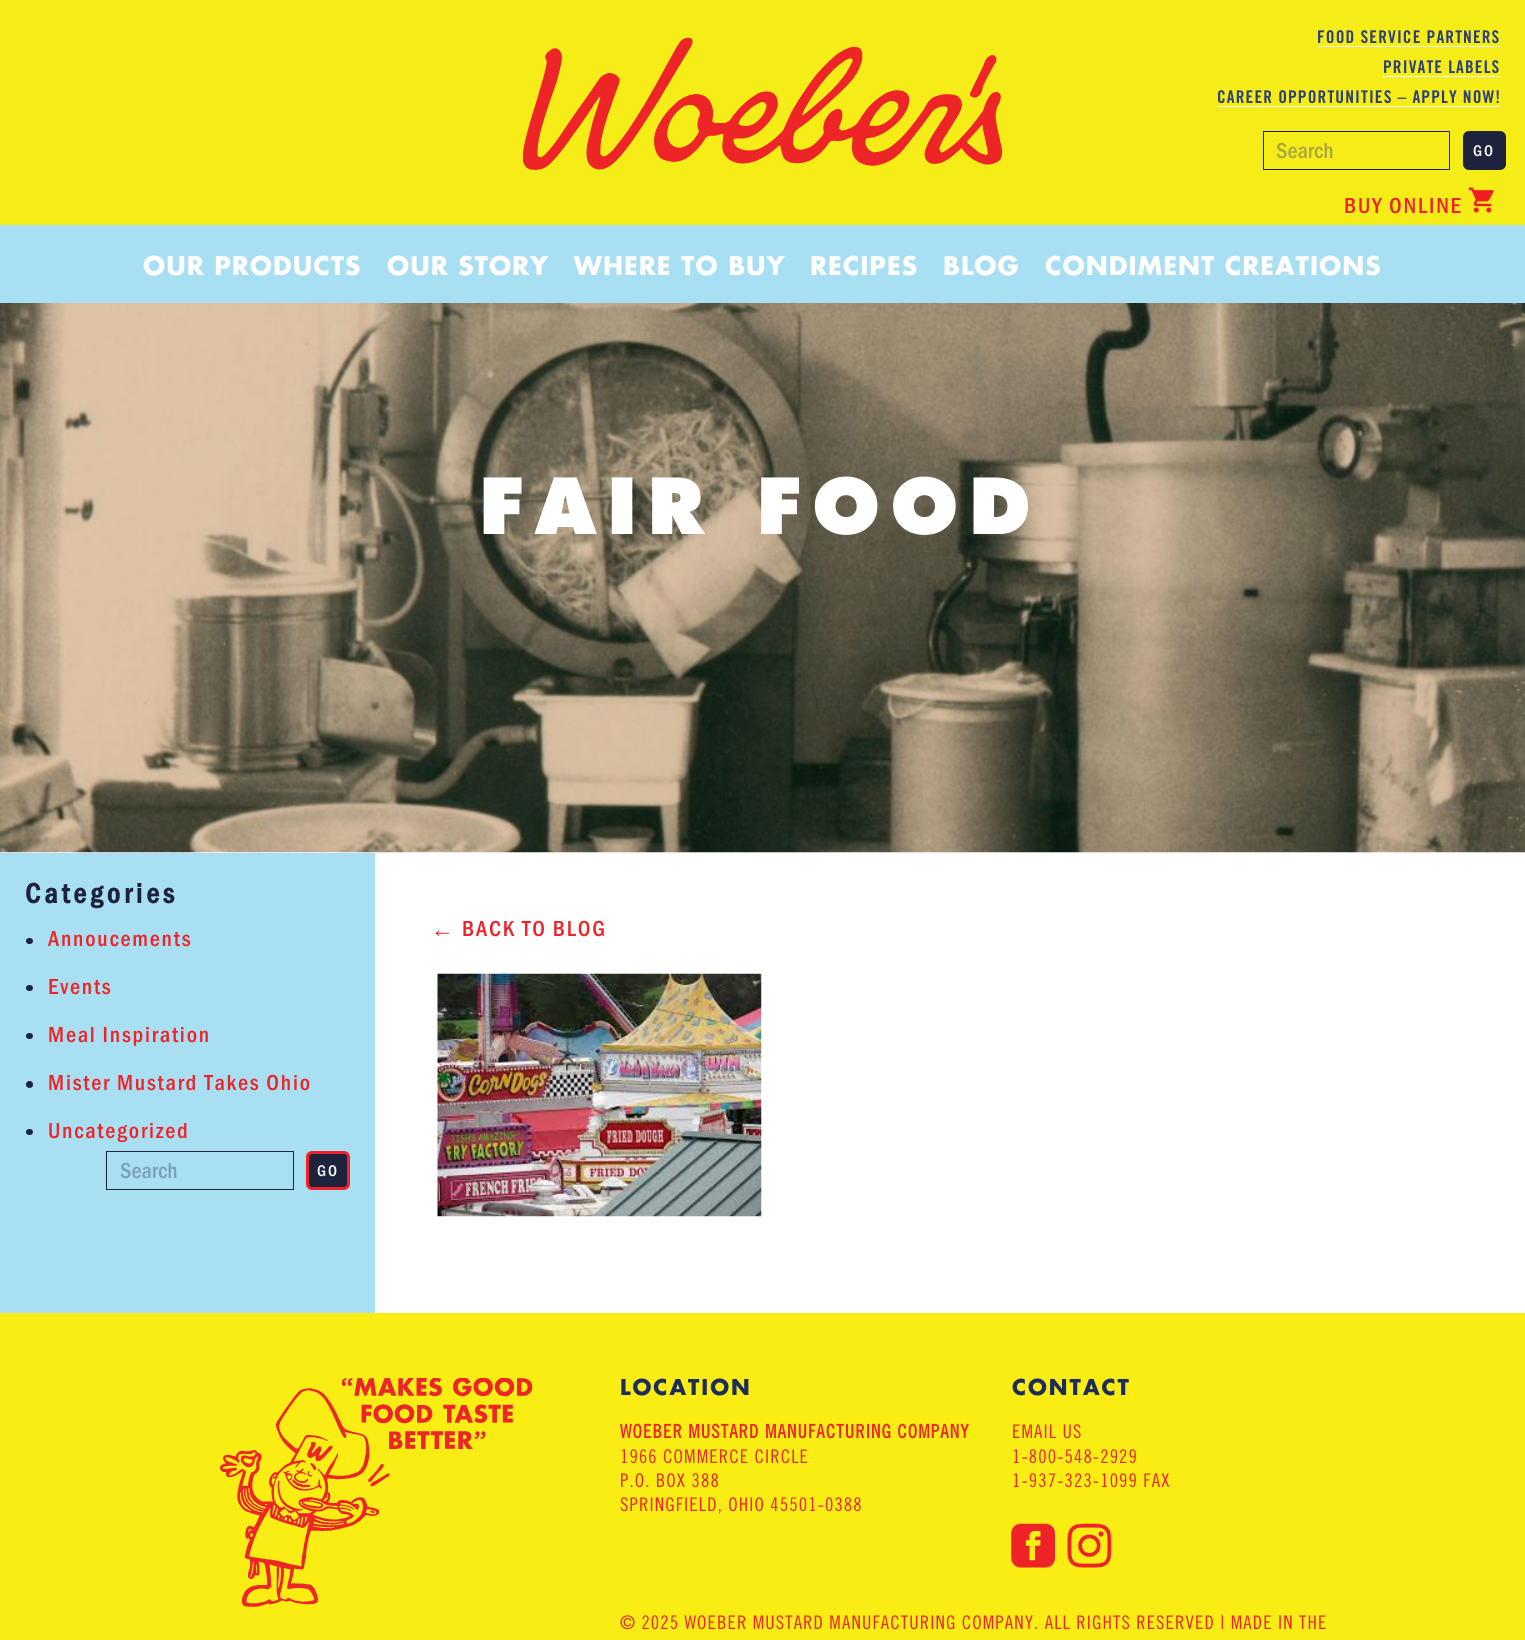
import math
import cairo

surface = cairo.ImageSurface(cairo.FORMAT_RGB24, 1525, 1640)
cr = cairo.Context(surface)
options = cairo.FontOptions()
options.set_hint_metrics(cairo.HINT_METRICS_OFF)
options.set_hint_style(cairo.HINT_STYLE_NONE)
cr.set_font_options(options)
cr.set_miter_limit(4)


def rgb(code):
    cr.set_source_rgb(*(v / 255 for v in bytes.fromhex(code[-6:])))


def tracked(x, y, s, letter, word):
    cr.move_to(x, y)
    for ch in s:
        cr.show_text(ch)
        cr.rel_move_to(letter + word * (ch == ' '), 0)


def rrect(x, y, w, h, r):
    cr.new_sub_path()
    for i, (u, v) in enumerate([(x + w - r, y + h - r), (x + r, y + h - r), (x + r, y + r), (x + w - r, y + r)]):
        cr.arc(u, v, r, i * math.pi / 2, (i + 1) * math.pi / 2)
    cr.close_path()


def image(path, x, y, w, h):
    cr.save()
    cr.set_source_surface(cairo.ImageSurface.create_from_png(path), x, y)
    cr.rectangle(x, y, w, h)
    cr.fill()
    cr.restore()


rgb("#ffffff")
cr.paint()
rgb("#f6ed18")
cr.rectangle(0, 0, 1525, 225)
cr.fill()
rgb("#a9dff2")
cr.rectangle(0, 225, 1525, 78)
cr.fill()
rgb("#ffffff")
rrect(1318, 46, 182, 1, 0.5)
cr.fill()
rrect(1383, 76, 117, 1, 0.5)
cr.fill()
rrect(1218, 106, 282, 1, 0.5)
cr.fill()
image("img/1.png", 523, 38, 480, 132)
cr.rectangle(1263.5, 131.5, 186, 38)
rgb("#1d233d")
cr.set_line_width(1)
cr.stroke()
rrect(1464.5, 132.5, 40, 36, 4.5)
cr.fill_preserve()
cr.set_line_width(3)
cr.stroke()
image("img/2.png", 1468, 187, 26, 26)
image("img/3.png", 0, 303, 1525, 550)
rgb("#a9dff2")
cr.rectangle(0, 853, 375, 460)
cr.fill()
rgb("#1d233d")
rrect(26, 938, 7, 6, 3)
cr.fill()
rrect(26, 985, 7, 6, 3)
cr.fill()
rrect(26, 1033, 7, 6, 3)
cr.fill()
cr.arc(29.5, 1084.5, 3.5, 0, 2 * math.pi)
cr.fill()
rrect(26, 1129, 7, 6, 3)
cr.fill()
cr.rectangle(106.5, 1151.5, 187, 38)
cr.set_line_width(1)
cr.stroke()
rrect(307.5, 1152.5, 41, 36, 4.5)
cr.fill_preserve()
rgb("#ed2328")
cr.set_line_width(3)
cr.stroke()
image("img/4.png", 437, 973, 325, 244)
rgb("#f9ed13")
cr.rectangle(0, 1313, 1525, 327)
cr.fill()
image("img/5.png", 220, 1378, 313, 229)
image("img/6.png", 1011, 1523, 44, 45)
image("img/7.png", 1067, 1523, 45, 45)
cr.select_font_face("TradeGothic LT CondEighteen", cairo.FONT_SLANT_NORMAL, cairo.FONT_WEIGHT_BOLD)
cr.set_font_size(17.5)
rgb("#2c3f78")
for x, y, s in [
    (1317, 43, "FOOD SERVICE PARTNERS"),
    (1383, 73, "PRIVATE LABELS"),
    (1217, 103, "CAREER OPPORTUNITIES – APPLY NOW!"),
]:
    tracked(x, y, s, 1.1, 0)
cr.select_font_face("Futura", cairo.FONT_SLANT_NORMAL, cairo.FONT_WEIGHT_BOLD)
cr.set_font_size(25)
rgb("#ffffff")
for x, y, s in [
    (143, 275, "OUR PRODUCTS"),
    (387, 275, "OUR STORY"),
    (574, 275, "WHERE TO BUY"),
    (810, 275, "RECIPES"),
    (943, 275, "BLOG"),
    (1045, 275, "CONDIMENT CREATIONS"),
]:
    tracked(x, y, s, 1, 0)
cr.select_font_face("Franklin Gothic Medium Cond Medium")
cr.set_font_size(22.5)
rgb("#a9a83c")
cr.move_to(1276, 158)
cr.show_text("Search")
cr.set_font_size(16)
rgb("#ffffff")
tracked(1473, 156, "GO", 2, 0)
cr.set_font_size(22.5)
rgb("#ed2328")
tracked(1344, 213, "BUY ONLINE", 1.8, 0)
cr.select_font_face("Futura ExtraBold")
cr.set_font_size(75)
rgb("#ffffff")
tracked(479, 534, "FAIR FOOD", 10.5, 0)
cr.select_font_face("Franklin Gothic Medium Cond", cairo.FONT_SLANT_NORMAL, cairo.FONT_WEIGHT_BOLD)
cr.set_font_size(28.75)
rgb("#1d233d")
tracked(25, 903, "Categories", 4, 0)
cr.select_font_face("Franklin Gothic Medium Cond Medium")
cr.set_font_size(22.5)
rgb("#ed2328")
for x, y, s in [
    (48, 946, "Annoucements"),
    (48, 994, "Events"),
    (48, 1042, "Meal Inspiration"),
    (48, 1090, "Mister Mustard Takes Ohio"),
    (48, 1138, "Uncategorized"),
]:
    tracked(x, y, s, 1.8, 0)
rgb("#7ba0be")
cr.move_to(120, 1178)
cr.show_text("Search")
cr.set_font_size(16)
rgb("#ffffff")
tracked(317, 1176, "GO", 2, 0)
cr.select_font_face("Liberation Sans")
cr.set_font_size(22.5)
rgb("#ed2328")
tracked(431, 937, "←", 1.8, 0)
cr.select_font_face("Franklin Gothic Medium Cond Medium")
tracked(462, 936, "BACK TO BLOG", 1.8, 0)
cr.select_font_face("Futura", cairo.FONT_SLANT_NORMAL, cairo.FONT_WEIGHT_BOLD)
cr.set_font_size(21.25)
rgb("#1e2c5d")
tracked(620, 1395, "LOCATION", 2, 0)
cr.select_font_face("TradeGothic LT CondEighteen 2", cairo.FONT_SLANT_NORMAL, cairo.FONT_WEIGHT_BOLD)
cr.set_font_size(18.75)
rgb("#ed2328")
tracked(620, 1438, "WOEBER MUSTARD MANUFACTURING COMPANY", 1.12, 0)
cr.select_font_face("TradeGothic LT CondEighteen Medium")
for x, y, s in [
    (620, 1463, "1966 COMMERCE CIRCLE"),
    (620, 1487, "P.O. BOX 388"),
    (620, 1511, "SPRINGFIELD, OHIO 45501-0388"),
]:
    tracked(x, y, s, 1.12, 0)
cr.select_font_face("Futura", cairo.FONT_SLANT_NORMAL, cairo.FONT_WEIGHT_BOLD)
cr.set_font_size(21.25)
rgb("#1e2c5d")
tracked(1012, 1395, "CONTACT", 2, 0)
cr.select_font_face("TradeGothic LT CondEighteen Medium")
cr.set_font_size(18.75)
rgb("#ed2328")
for x, y, s in [
    (1012, 1438, "EMAIL US"),
    (1012, 1463, "1-800-548-2929"),
    (1012, 1487, "1-937-323-1099 FAX"),
    (620, 1629, "© 2025 WOEBER MUSTARD MANUFACTURING COMPANY. ALL RIGHTS RESERVED | MADE IN THE"),
]:
    tracked(x, y, s, 1.12, 0)
surface.write_to_png("page.png")
